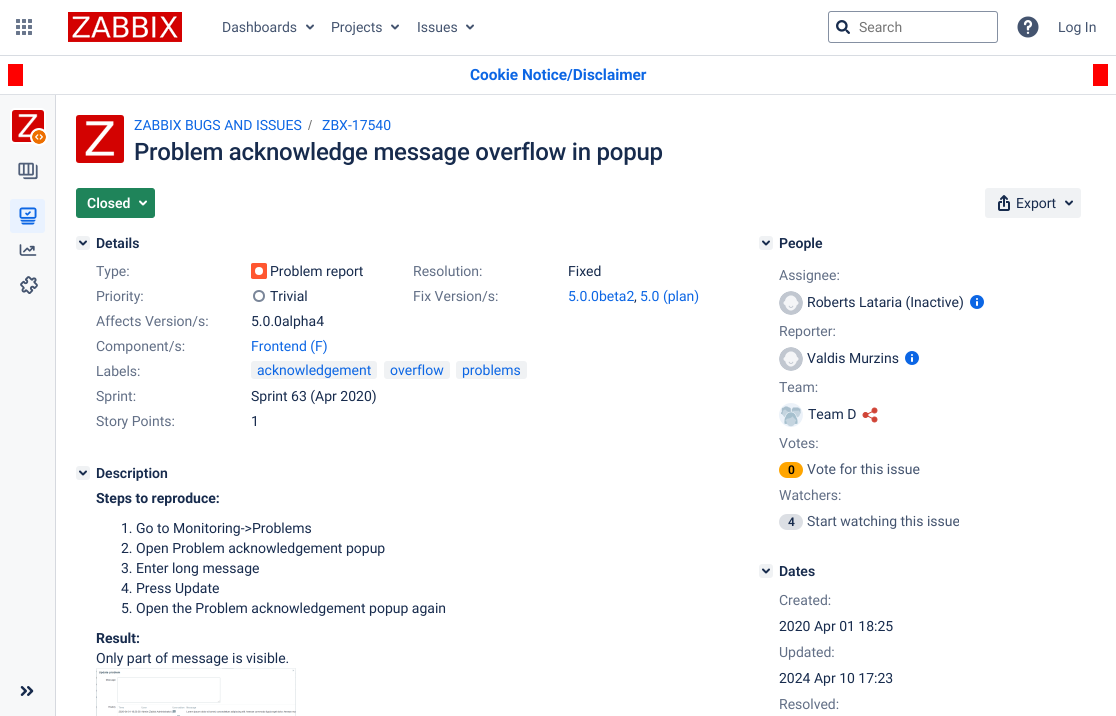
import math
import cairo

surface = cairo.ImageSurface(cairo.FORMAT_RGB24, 1116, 716)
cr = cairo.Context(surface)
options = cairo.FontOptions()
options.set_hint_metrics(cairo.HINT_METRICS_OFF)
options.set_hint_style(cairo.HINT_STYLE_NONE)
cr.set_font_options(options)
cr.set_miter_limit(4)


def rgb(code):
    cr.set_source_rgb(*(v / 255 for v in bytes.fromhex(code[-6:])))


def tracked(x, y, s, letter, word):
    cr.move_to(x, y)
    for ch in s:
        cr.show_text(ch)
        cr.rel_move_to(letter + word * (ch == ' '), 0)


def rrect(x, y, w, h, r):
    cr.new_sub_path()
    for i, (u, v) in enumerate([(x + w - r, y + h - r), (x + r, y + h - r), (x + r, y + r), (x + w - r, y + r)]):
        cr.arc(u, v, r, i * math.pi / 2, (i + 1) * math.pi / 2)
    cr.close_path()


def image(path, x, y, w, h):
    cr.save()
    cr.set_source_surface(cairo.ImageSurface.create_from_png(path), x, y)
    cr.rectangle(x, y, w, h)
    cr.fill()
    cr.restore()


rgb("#ffffff")
cr.paint()
rgb("#d8dce2")
cr.rectangle(0, 55, 1116, 1)
cr.fill()
image("img/1.png", 16, 19, 16, 16)
image("img/2.png", 68, 12, 114, 30)
image("img/3.png", 306, 24, 8, 6)
image("img/3.png", 391, 24, 8, 6)
image("img/3.png", 466, 24, 8, 6)
rrect(828.5, 11.5, 169, 31, 2.5)
rgb("#8590a2")
cr.set_line_width(1)
cr.stroke()
image("img/4.png", 836, 20, 14, 14)
image("img/5.png", 1017, 16, 22, 22)
for x, y, w, h, color in [
    (0, 94, 1116, 1, "#dde0e5"),
    (1093, 64, 15, 22, "#ff0000"),
    (8, 64, 15, 22, "#ff0000"),
    (0, 95, 55, 621, "#f7f8f9"),
    (55, 95, 1, 621, "#d6d9df"),
]:
    rgb(color)
    cr.rectangle(x, y, w, h)
    cr.fill()
rrect(11, 109, 34, 34, 4)
rgb("#ffffff")
cr.set_line_width(2)
cr.stroke()
image("img/6.png", 12, 110, 32, 32)
cr.arc(39, 137, 9, 0, 2 * math.pi)
cr.fill()
image("img/7.png", 32, 130, 14, 14)
image("img/8.png", 18, 162, 20, 18)
rgb("#e9f2ff")
rrect(10, 199, 35, 34, 3)
cr.fill()
image("img/9.png", 19, 207, 18, 18)
image("img/10.png", 19, 244, 18, 12)
image("img/11.png", 20, 276, 18, 18)
image("img/12.png", 20, 686, 14, 10)
image("img/13.png", 76, 115, 48, 48)
rgb("#707070")
cr.new_path()
cr.move_to(309, 130)
cr.line_to(312, 120)
cr.line_to(311, 120)
cr.line_to(308, 130)
cr.close_path()
cr.fill()
rgb("#1f845a")
rrect(76.5, 188.5, 78, 29, 2.5)
cr.fill_preserve()
cr.set_line_width(1)
cr.stroke()
image("img/14.png", 139, 200, 8, 6)
rgb("#f0f2f4")
rrect(985, 188, 96, 30, 3)
cr.fill()
image("img/15.png", 998, 195, 12, 16)
image("img/16.png", 1065, 200, 8, 6)
rrect(76, 236, 14, 14, 3)
cr.fill()
image("img/17.png", 79, 240, 8, 6)
image("img/18.png", 251, 263, 16, 16)
cr.arc(259, 296, 5, 0, 2 * math.pi)
rgb("#7a8699")
cr.set_line_width(2)
cr.stroke()
rgb("#f0f2f4")
rrect(251, 361, 126, 18, 3)
cr.fill()
rrect(384, 361, 66, 18, 3)
cr.fill()
rrect(456, 361, 71, 18, 3)
cr.fill()
rrect(76, 466, 14, 14, 3)
cr.fill()
image("img/17.png", 79, 470, 8, 6)
image("img/19.png", 96, 668, 200, 48)
rrect(759, 236, 14, 14, 3)
cr.fill()
image("img/17.png", 762, 240, 8, 6)
image("img/20.png", 779, 291, 24, 24)
image("img/21.png", 970, 295, 14, 14)
image("img/20.png", 779, 347, 24, 24)
image("img/21.png", 905, 351, 14, 14)
image("img/22.png", 779, 403, 24, 24)
image("img/23.png", 862, 407, 16, 16)
rgb("#ffa500")
rrect(779, 462, 24, 16, 8)
cr.fill()
rgb("#dcdfe4")
rrect(779, 514, 24, 16, 8)
cr.fill()
rgb("#f0f2f4")
rrect(759, 564, 14, 14, 3)
cr.fill()
image("img/17.png", 762, 568, 8, 6)
cr.select_font_face("Roboto")
cr.set_font_size(14)
rgb("#44546f")
for x, y, s in [
    (222, 32, "Dashboards"),
    (331, 32, "Projects"),
    (417, 32, "Issues"),
]:
    cr.move_to(x, y)
    cr.show_text(s)
rgb("#757575")
cr.move_to(859, 32)
cr.show_text("Search")
rgb("#44546f")
cr.move_to(1058, 32)
cr.show_text("Log In")
cr.select_font_face("Roboto", cairo.FONT_SLANT_NORMAL, cairo.FONT_WEIGHT_BOLD)
cr.set_font_size(15.4)
rgb("#0c66e4")
cr.move_to(470, 80)
cr.show_text("Cookie Notice/Disclaimer")
cr.select_font_face("Roboto")
cr.set_font_size(14)
cr.move_to(134, 130)
cr.show_text("ZABBIX BUGS AND ISSUES")
cr.move_to(322, 130)
cr.show_text("ZBX-17540")
cr.select_font_face("Roboto Medium")
cr.set_font_size(24)
rgb("#172b4d")
tracked(134, 160, "Problem acknowledge message overflow in popup", -0.25, 0)
cr.select_font_face("Roboto SemiBold")
cr.set_font_size(14)
rgb("#ffffff")
cr.move_to(87, 208)
cr.show_text("Closed")
cr.select_font_face("Roboto")
rgb("#172b4d")
cr.move_to(1016, 208)
cr.show_text("Export")
cr.select_font_face("Roboto SemiBold")
cr.move_to(96, 248)
cr.show_text("Details")
cr.select_font_face("Roboto")
rgb("#626f86")
cr.move_to(96, 276)
cr.show_text("Type:")
rgb("#172b4d")
cr.move_to(270, 276)
cr.show_text("Problem report")
rgb("#626f86")
cr.move_to(413, 276)
cr.show_text("Resolution:")
rgb("#172b4d")
cr.move_to(568, 276)
cr.show_text("Fixed")
rgb("#626f86")
cr.move_to(96, 301)
cr.show_text("Priority:")
rgb("#172b4d")
cr.move_to(270, 301)
cr.show_text("Trivial")
rgb("#626f86")
cr.move_to(413, 301)
cr.show_text("Fix Version/s:")
rgb("#0c66e4")
cr.move_to(568, 301)
cr.show_text("5.0.0beta2")
rgb("#172b4d")
cr.move_to(634, 301)
cr.show_text(",")
rgb("#0c66e4")
cr.move_to(640, 301)
cr.show_text("5.0 (plan)")
rgb("#626f86")
cr.move_to(96, 326)
cr.show_text("Affects Version/s:")
rgb("#172b4d")
cr.move_to(251, 326)
cr.show_text("5.0.0alpha4")
rgb("#626f86")
cr.move_to(96, 351)
cr.show_text("Component/s:")
rgb("#0c66e4")
cr.move_to(251, 351)
cr.show_text("Frontend (F)")
rgb("#626f86")
cr.move_to(96, 376)
cr.show_text("Labels:")
rgb("#0c66e4")
for x, y, s in [
    (257, 375, "acknowledgement"),
    (390, 375, "overflow"),
    (462, 375, "problems"),
]:
    cr.move_to(x, y)
    cr.show_text(s)
rgb("#626f86")
cr.move_to(96, 401)
cr.show_text("Sprint:")
rgb("#172b4d")
cr.move_to(251, 401)
cr.show_text("Sprint 63 (Apr 2020)")
rgb("#626f86")
cr.move_to(96, 426)
cr.show_text("Story Points:")
rgb("#172b4d")
cr.move_to(251, 426)
cr.show_text("1")
cr.select_font_face("Roboto SemiBold")
cr.move_to(96, 478)
cr.show_text("Description")
cr.select_font_face("Roboto", cairo.FONT_SLANT_NORMAL, cairo.FONT_WEIGHT_BOLD)
cr.move_to(96, 503)
cr.show_text("Steps to reproduce:")
cr.select_font_face("Roboto")
for x, y, s in [
    (121, 533, "1. Go to Monitoring->Problems"),
    (121, 553, "2. Open Problem acknowledgement popup"),
    (121, 573, "3. Enter long message"),
    (121, 593, "4. Press Update"),
    (121, 613, "5. Open the Problem acknowledgement popup again"),
]:
    cr.move_to(x, y)
    cr.show_text(s)
cr.select_font_face("Roboto", cairo.FONT_SLANT_NORMAL, cairo.FONT_WEIGHT_BOLD)
cr.move_to(96, 643)
cr.show_text("Result:")
cr.select_font_face("Roboto")
cr.move_to(96, 663)
cr.show_text("Only part of message is visible.")
cr.select_font_face("Roboto SemiBold")
cr.move_to(779, 248)
cr.show_text("People")
cr.select_font_face("Roboto")
rgb("#626f86")
cr.move_to(779, 280)
cr.show_text("Assignee:")
rgb("#172b4d")
cr.move_to(807, 307)
cr.show_text("Roberts Lataria (Inactive)")
rgb("#626f86")
cr.move_to(779, 336)
cr.show_text("Reporter:")
rgb("#172b4d")
cr.move_to(807, 363)
cr.show_text("Valdis Murzins")
rgb("#626f86")
cr.move_to(779, 392)
cr.show_text("Team:")
rgb("#172b4d")
cr.move_to(808, 419)
cr.show_text("Team D")
rgb("#626f86")
cr.move_to(779, 448)
cr.show_text("Votes:")
cr.select_font_face("Roboto SemiBold")
cr.set_font_size(12)
rgb("#000000")
cr.move_to(788, 474)
cr.show_text("0")
cr.select_font_face("Roboto")
cr.set_font_size(14)
rgb("#44546f")
cr.move_to(807, 474)
cr.show_text("Vote for this issue")
rgb("#626f86")
cr.move_to(779, 500)
cr.show_text("Watchers:")
cr.select_font_face("Roboto SemiBold")
cr.set_font_size(12)
rgb("#172b4d")
cr.move_to(788, 526)
cr.show_text("4")
cr.select_font_face("Roboto")
cr.set_font_size(14)
rgb("#44546f")
cr.move_to(807, 526)
cr.show_text("Start watching this issue")
cr.select_font_face("Roboto SemiBold")
rgb("#172b4d")
cr.move_to(779, 576)
cr.show_text("Dates")
cr.select_font_face("Roboto")
rgb("#626f86")
cr.move_to(779, 605)
cr.show_text("Created:")
rgb("#172b4d")
cr.move_to(779, 631)
cr.show_text("2020 Apr 01 18:25")
rgb("#626f86")
cr.move_to(779, 657)
cr.show_text("Updated:")
rgb("#172b4d")
cr.move_to(779, 683)
cr.show_text("2024 Apr 10 17:23")
rgb("#626f86")
cr.move_to(779, 709)
cr.show_text("Resolved:")
surface.write_to_png("page.png")
